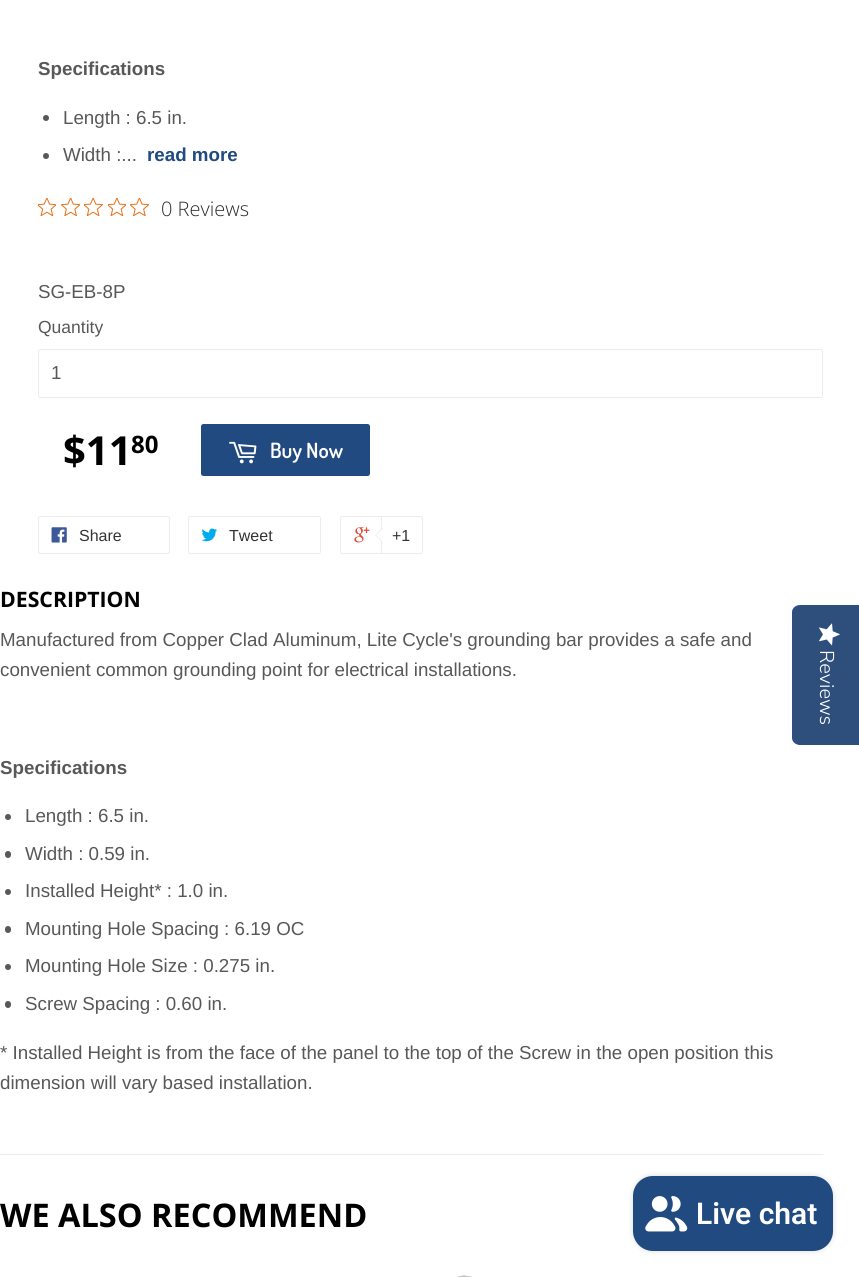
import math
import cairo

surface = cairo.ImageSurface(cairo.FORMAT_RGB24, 859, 1277)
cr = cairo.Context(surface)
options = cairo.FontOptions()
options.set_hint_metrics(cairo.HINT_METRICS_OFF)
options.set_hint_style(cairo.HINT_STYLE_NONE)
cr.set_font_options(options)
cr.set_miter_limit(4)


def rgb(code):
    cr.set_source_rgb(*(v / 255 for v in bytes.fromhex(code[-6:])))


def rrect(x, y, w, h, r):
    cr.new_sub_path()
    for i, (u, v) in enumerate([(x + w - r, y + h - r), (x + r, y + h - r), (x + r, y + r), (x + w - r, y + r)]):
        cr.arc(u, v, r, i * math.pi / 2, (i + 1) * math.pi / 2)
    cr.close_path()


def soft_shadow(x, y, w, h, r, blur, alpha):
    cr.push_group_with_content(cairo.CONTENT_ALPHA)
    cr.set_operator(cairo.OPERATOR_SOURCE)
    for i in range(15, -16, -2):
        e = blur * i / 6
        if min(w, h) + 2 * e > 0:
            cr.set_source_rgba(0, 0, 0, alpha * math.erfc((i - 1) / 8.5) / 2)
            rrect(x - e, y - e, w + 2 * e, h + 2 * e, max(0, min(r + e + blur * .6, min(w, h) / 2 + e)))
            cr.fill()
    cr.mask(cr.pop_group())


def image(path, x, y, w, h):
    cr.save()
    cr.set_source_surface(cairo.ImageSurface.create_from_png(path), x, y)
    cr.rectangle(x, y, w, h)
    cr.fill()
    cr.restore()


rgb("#ffffff")
cr.paint()
rgb("#585858")
cr.arc(46, 118, 3, 0, 2 * math.pi)
cr.fill()
cr.arc(46, 156, 3, 0, 2 * math.pi)
cr.fill()
image("img/1.png", 38, 198, 18, 18)
image("img/2.png", 61, 198, 19, 18)
image("img/3.png", 84, 198, 19, 18)
image("img/1.png", 108, 198, 18, 18)
image("img/4.png", 130, 198, 19, 18)
rrect(38.5, 349.5, 784, 48, 2)
rgb("#ececec")
cr.set_line_width(1)
cr.stroke()
rgb("#204a80")
rrect(201, 424, 169, 52, 2.5)
cr.fill()
image("img/5.png", 229, 441, 28, 23)
rrect(38.5, 516.5, 131, 37, 2)
rgb("#ececec")
cr.stroke()
image("img/6.png", 51, 527, 16, 16)
rrect(188.5, 516.5, 132, 37, 2)
cr.stroke()
image("img/7.png", 201, 528, 16, 14)
rrect(340.5, 516.5, 80, 37, 2)
cr.stroke()
image("img/8.png", 354, 527, 16, 16)
rgb("#ffffff")
cr.new_path()
cr.move_to(381.5, 516.5)
cr.line_to(420.5, 516.5)
cr.curve_to(421.5, 516.5, 422.5, 517.5, 422.5, 518.5)
cr.line_to(422.5, 551.5)
cr.curve_to(422.5, 552.5, 421.5, 553.5, 420.5, 553.5)
cr.line_to(381.5, 553.5)
cr.close_path()
cr.fill_preserve()
rgb("#ececec")
cr.stroke()
cr.new_path()
cr.move_to(382.5, 527.5)
cr.line_to(382.5, 542.5)
cr.line_to(375, 535)
cr.close_path()
cr.fill()
rgb("#ffffff")
cr.new_path()
cr.move_to(384, 527.5)
cr.line_to(384, 542.5)
cr.line_to(376, 535)
cr.close_path()
cr.fill()
rgb("#585858")
cr.arc(8, 817, 3, 0, 2 * math.pi)
cr.fill()
rrect(5, 851, 6, 7, 3)
cr.fill()
cr.arc(8, 892, 3, 0, 2 * math.pi)
cr.fill()
rrect(5, 926, 6, 7, 3)
cr.fill()
cr.arc(8, 967, 3, 0, 2 * math.pi)
cr.fill()
rrect(5, 1001, 6, 7, 3)
cr.fill()
rgb("#ececec")
cr.rectangle(0, 1154, 823, 1)
cr.fill()
image("img/9.png", 457, 1275, 16, 2)
rgb("#2e4f7c")
cr.new_path()
cr.move_to(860, 605)
cr.line_to(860, 745)
cr.line_to(800, 745)
cr.curve_to(796, 745, 792, 742, 792, 738)
cr.line_to(792, 612)
cr.curve_to(792, 608, 796, 605, 800, 605)
cr.close_path()
cr.fill()
image("img/10.png", 818, 623, 22, 23)
rgb("#000000")
soft_shadow(633, 1176, 200, 75, 20, 3, 0.15)
rgb("#204a80")
rrect(633, 1176, 200, 75, 20)
cr.fill()
image("img/11.png", 645, 1196, 43, 36)
cr.select_font_face("Liberation Sans", cairo.FONT_SLANT_NORMAL, cairo.FONT_WEIGHT_BOLD)
cr.set_font_size(18.75)
rgb("#585858")
cr.move_to(38, 75)
cr.show_text("Specifications")
cr.select_font_face("Liberation Sans")
cr.move_to(63, 124)
cr.show_text("Length : 6.5 in.")
cr.move_to(63, 161)
cr.show_text("Width :...")
cr.select_font_face("Liberation Sans", cairo.FONT_SLANT_NORMAL, cairo.FONT_WEIGHT_BOLD)
rgb("#204a80")
cr.move_to(147, 161)
cr.show_text("read more")
cr.select_font_face("Open Sans Light")
cr.set_font_size(20)
rgb("#2c2c2c")
cr.move_to(161, 216)
cr.show_text("0 Reviews")
cr.select_font_face("Liberation Sans")
cr.set_font_size(18.75)
rgb("#585858")
cr.move_to(38, 298)
cr.show_text("SG-EB-8P")
cr.set_font_size(17.5)
cr.move_to(38, 333)
cr.show_text("Quantity")
cr.set_font_size(18.75)
cr.move_to(51, 379)
cr.show_text("1")
cr.select_font_face("Open Sans", cairo.FONT_SLANT_NORMAL, cairo.FONT_WEIGHT_BOLD)
cr.set_font_size(40)
rgb("#000000")
cr.move_to(63, 465)
cr.show_text("$11")
cr.set_font_size(24)
cr.move_to(131, 453)
cr.show_text("80")
cr.select_font_face("Dosis SemiBold")
cr.set_font_size(21)
rgb("#ffffff")
cr.move_to(270, 458)
cr.show_text("Buy Now")
cr.select_font_face("Liberation Sans")
cr.set_font_size(16)
rgb("#333333")
for x, y, s in [
    (79, 541, "Share"),
    (229, 541, "Tweet"),
    (392, 541, "+1"),
]:
    cr.move_to(x, y)
    cr.show_text(s)
cr.select_font_face("Open Sans", cairo.FONT_SLANT_NORMAL, cairo.FONT_WEIGHT_BOLD)
cr.set_font_size(21.25)
rgb("#000000")
cr.move_to(0, 607)
cr.show_text("DESCRIPTION")
cr.select_font_face("Liberation Sans")
cr.set_font_size(18.75)
rgb("#585858")
cr.move_to(0, 646)
cr.show_text("Manufactured from Copper Clad Aluminum, Lite Cycle's grounding bar provides a safe and")
cr.move_to(0, 676)
cr.show_text("convenient common grounding point for electrical installations.")
cr.select_font_face("Liberation Sans", cairo.FONT_SLANT_NORMAL, cairo.FONT_WEIGHT_BOLD)
cr.move_to(0, 774)
cr.show_text("Specifications")
cr.select_font_face("Liberation Sans")
for x, y, s in [
    (25, 822, "Length : 6.5 in."),
    (25, 860, "Width : 0.59 in."),
    (25, 897, "Installed Height* : 1.0 in."),
    (25, 935, "Mounting Hole Spacing : 6.19 OC"),
    (25, 972, "Mounting Hole Size : 0.275 in."),
    (25, 1010, "Screw Spacing : 0.60 in."),
    (0, 1059, "* Installed Height is from the face of the panel to the top of the Screw in the open position this"),
    (0, 1089, "dimension will vary based installation."),
]:
    cr.move_to(x, y)
    cr.show_text(s)
cr.select_font_face("Open Sans", cairo.FONT_SLANT_NORMAL, cairo.FONT_WEIGHT_BOLD)
cr.set_font_size(32.5)
rgb("#000000")
cr.move_to(0, 1227)
cr.show_text("WE ALSO RECOMMEND")
cr.select_font_face("Nunito Sans Light")
cr.set_font_size(20)
rgb("#ffffff")
cr.save()
cr.translate(820, 650)
cr.rotate(90 * math.pi / 180)
cr.move_to(0, 0)
cr.show_text("Reviews")
cr.restore()
cr.select_font_face("Roboto SemiBold")
cr.set_font_size(30)
cr.move_to(696, 1224)
cr.show_text("Live chat")
surface.write_to_png("page.png")
